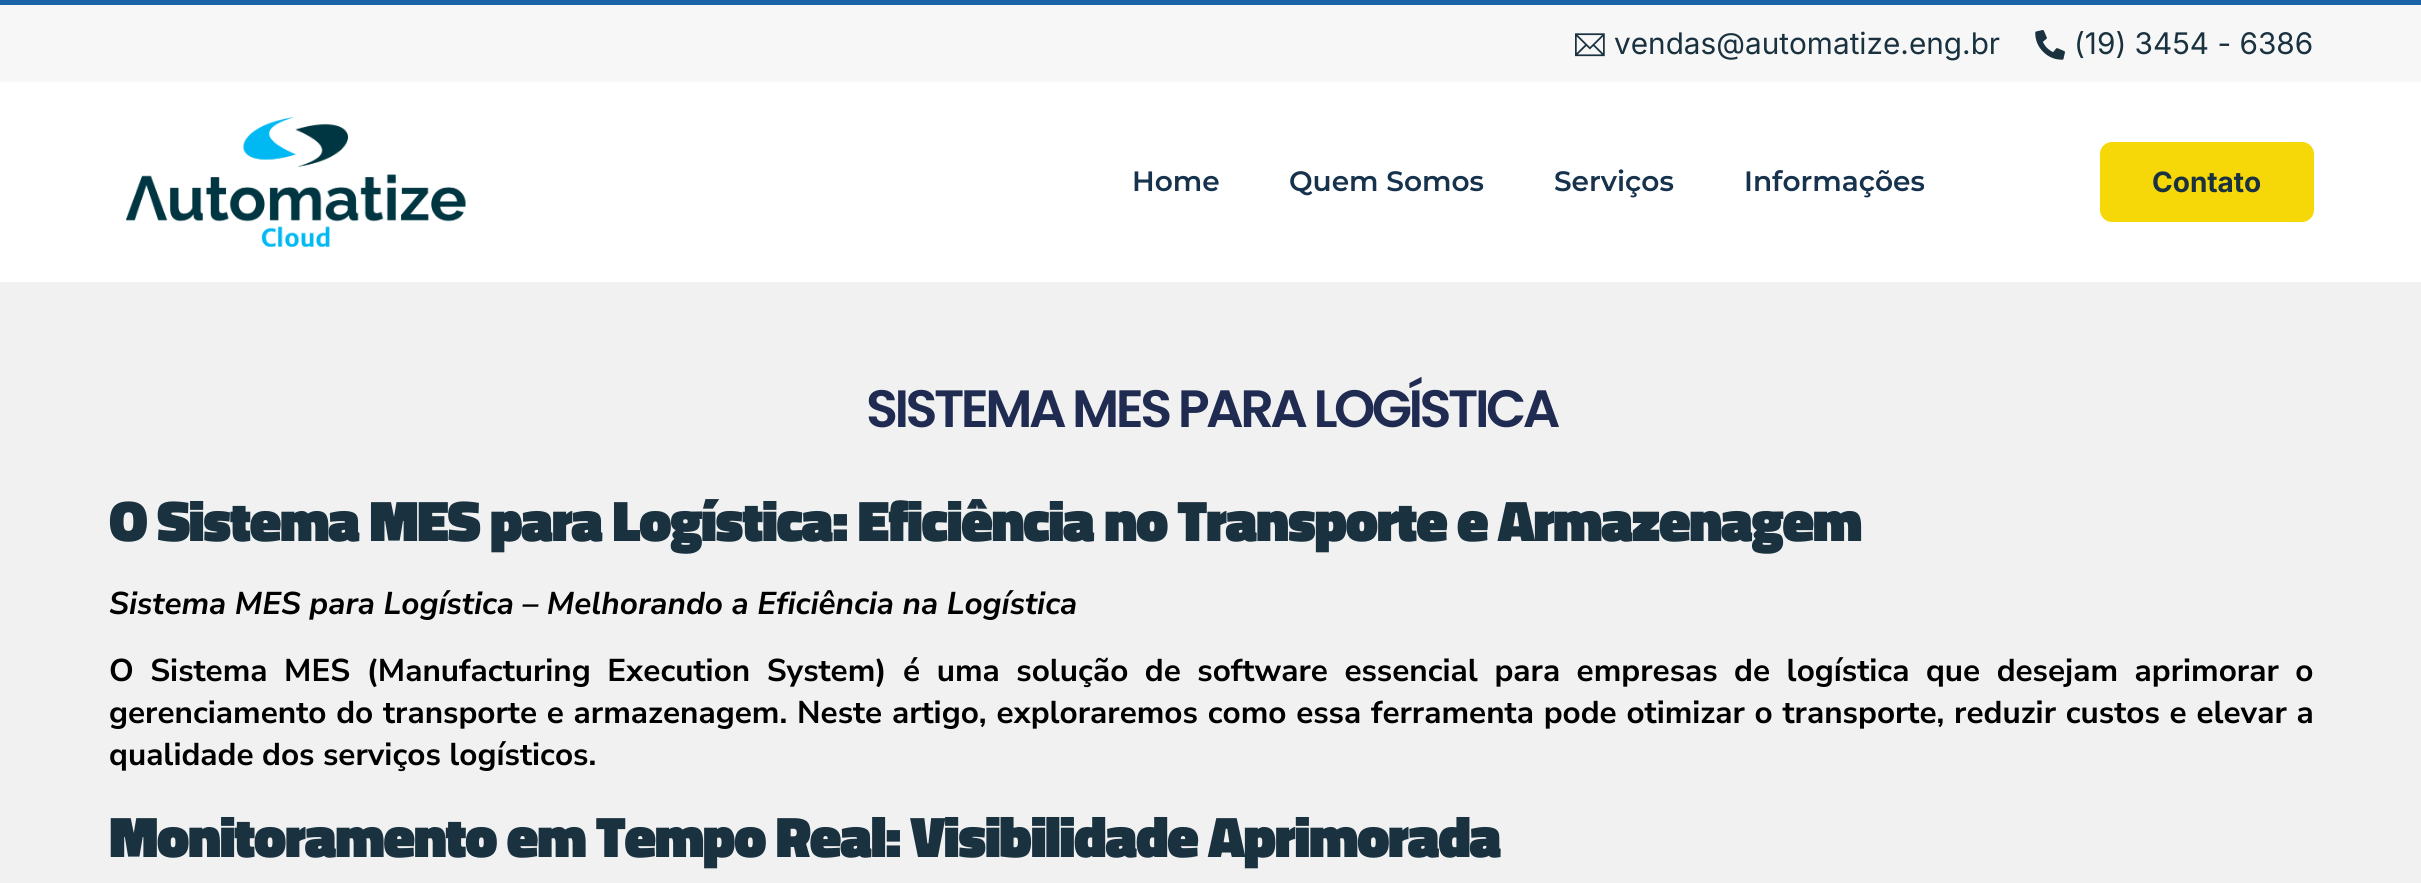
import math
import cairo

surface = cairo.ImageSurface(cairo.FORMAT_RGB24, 2421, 883)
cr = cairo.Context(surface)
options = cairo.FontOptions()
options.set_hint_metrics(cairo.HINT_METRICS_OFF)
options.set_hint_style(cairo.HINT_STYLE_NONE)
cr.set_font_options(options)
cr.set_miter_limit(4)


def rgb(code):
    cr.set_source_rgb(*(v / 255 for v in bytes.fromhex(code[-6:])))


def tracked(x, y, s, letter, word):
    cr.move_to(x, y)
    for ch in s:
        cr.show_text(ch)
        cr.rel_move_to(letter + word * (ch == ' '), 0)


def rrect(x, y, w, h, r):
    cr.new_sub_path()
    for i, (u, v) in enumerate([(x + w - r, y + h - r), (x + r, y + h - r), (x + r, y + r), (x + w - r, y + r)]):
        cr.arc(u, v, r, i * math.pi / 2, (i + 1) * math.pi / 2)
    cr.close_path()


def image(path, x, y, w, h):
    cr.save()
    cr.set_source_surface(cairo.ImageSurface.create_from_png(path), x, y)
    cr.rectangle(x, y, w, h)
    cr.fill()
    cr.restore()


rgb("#f1f1f1")
cr.paint()
rgb("#f7f7f7")
cr.rectangle(0, 5, 2421, 77)
cr.fill()
rgb("#1963a6")
cr.rectangle(0, 0, 2421, 5)
cr.fill()
image("img/1.png", 1575, 33, 30, 24)
image("img/2.png", 2035, 30, 30, 30)
rgb("#ffffff")
cr.rectangle(0, 82, 2421, 200)
cr.fill()
image("img/3.png", 126, 117, 340, 130)
rgb("#f6d707")
rrect(2100, 142, 214, 80, 12)
cr.fill()
cr.select_font_face("Inter")
cr.set_font_size(29.75)
rgb("#1a3240")
cr.move_to(1614, 54)
cr.show_text("vendas@automatize.eng.br")
cr.move_to(2074, 54)
cr.show_text("(19) 3454 - 6386")
cr.select_font_face("Montserrat SemiBold")
cr.set_font_size(28)
rgb("#16324d")
for x, y, s in [
    (1132, 191, "Home"),
    (1289, 191, "Quem Somos"),
    (1554, 191, "Serviços"),
    (1744, 191, "Informações"),
]:
    cr.move_to(x, y)
    cr.show_text(s)
cr.select_font_face("Inter", cairo.FONT_SLANT_NORMAL, cairo.FONT_WEIGHT_BOLD)
rgb("#1a3240")
cr.move_to(2152, 192)
cr.show_text("Contato")
cr.select_font_face("Poppins SemiBold")
cr.set_font_size(52.5)
rgb("#202b52")
tracked(866, 427, "SISTEMA MES PARA LOGÍSTICA", -3.5, 0)
cr.select_font_face("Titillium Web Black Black")
cr.set_font_size(58)
rgb("#1a3240")
tracked(109, 541, "O Sistema MES para Logística: Eficiência no Transporte e Armazenagem", -1.75, 0)
cr.select_font_face("Nunito Sans", cairo.FONT_SLANT_ITALIC, cairo.FONT_WEIGHT_BOLD)
cr.set_font_size(31.5)
rgb("#000000")
cr.move_to(109, 614)
cr.show_text("Sistema MES para Logística – Melhorando a Eficiência na Logística")
cr.select_font_face("Nunito Sans", cairo.FONT_SLANT_NORMAL, cairo.FONT_WEIGHT_BOLD)
tracked(109, 681, "O Sistema MES (Manufacturing Execution System) é uma solução de software essencial para empresas de logística que desejam aprimorar o", 0, 8)
tracked(109, 723, "gerenciamento do transporte e armazenagem. Neste artigo, exploraremos como essa ferramenta pode otimizar o transporte, reduzir custos e elevar a", 0, 1.25)
cr.move_to(109, 765)
cr.show_text("qualidade dos serviços logísticos.")
cr.select_font_face("Titillium Web Black Black")
cr.set_font_size(58)
rgb("#1a3240")
tracked(109, 857, "Monitoramento em Tempo Real: Visibilidade Aprimorada", -1.75, 0)
surface.write_to_png("page.png")
